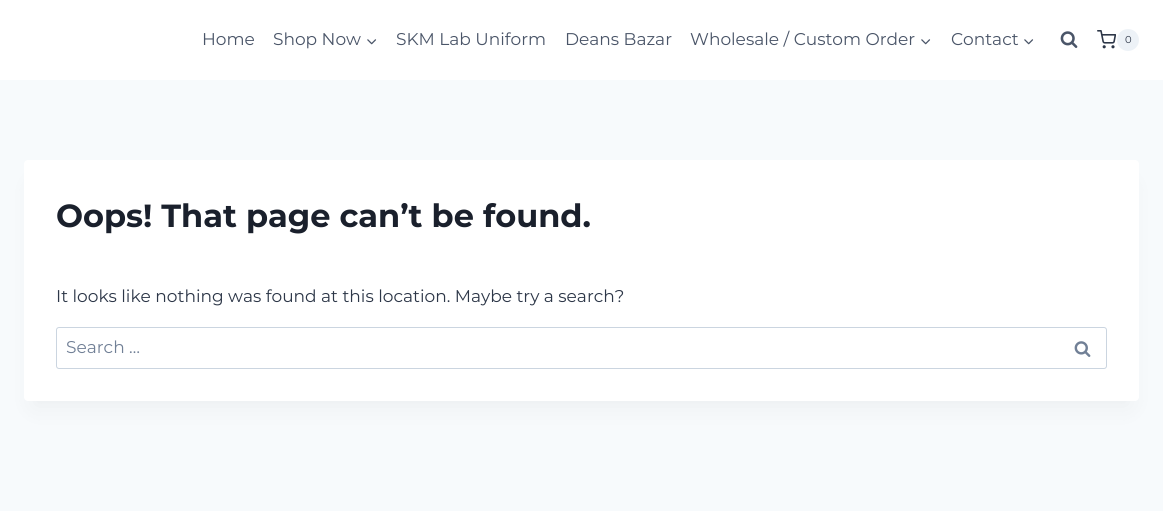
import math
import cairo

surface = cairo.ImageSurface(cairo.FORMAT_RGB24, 1163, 511)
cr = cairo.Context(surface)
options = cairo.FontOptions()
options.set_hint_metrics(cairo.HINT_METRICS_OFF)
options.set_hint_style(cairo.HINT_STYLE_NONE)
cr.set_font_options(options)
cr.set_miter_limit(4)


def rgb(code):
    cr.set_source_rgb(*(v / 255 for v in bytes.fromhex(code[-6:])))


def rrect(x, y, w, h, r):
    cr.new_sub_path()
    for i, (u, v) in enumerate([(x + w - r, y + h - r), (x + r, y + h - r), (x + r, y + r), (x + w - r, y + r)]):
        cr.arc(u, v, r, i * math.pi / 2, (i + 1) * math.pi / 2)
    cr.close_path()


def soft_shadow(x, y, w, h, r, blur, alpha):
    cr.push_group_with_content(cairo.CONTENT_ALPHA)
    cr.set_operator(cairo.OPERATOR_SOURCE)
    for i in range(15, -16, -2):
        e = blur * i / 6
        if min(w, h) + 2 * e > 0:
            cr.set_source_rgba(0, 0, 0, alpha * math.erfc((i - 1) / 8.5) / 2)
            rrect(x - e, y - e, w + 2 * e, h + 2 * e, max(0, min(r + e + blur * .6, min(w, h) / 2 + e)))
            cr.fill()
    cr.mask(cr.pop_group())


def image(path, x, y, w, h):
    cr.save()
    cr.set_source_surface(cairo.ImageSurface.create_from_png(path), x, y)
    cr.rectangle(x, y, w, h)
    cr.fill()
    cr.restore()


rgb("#f7fafc")
cr.paint()
rgb("#ffffff")
cr.rectangle(0, 0, 1163, 80)
cr.fill()
image("img/1.png", 367, 39, 10, 6)
image("img/1.png", 921, 39, 10, 6)
image("img/1.png", 1024, 39, 10, 6)
image("img/2.png", 1060, 31, 18, 17)
image("img/3.png", 1097, 30, 19, 19)
rgb("#edf2f7")
cr.arc(1128, 40, 11, 0, 2 * math.pi)
cr.fill()
rgb("#000000")
soft_shadow(34, 185, 1095, 221, 0, 12.5, 0.05)
rgb("#ffffff")
rrect(24, 160, 1115, 241, 4)
cr.fill()
rrect(56.5, 327.5, 1050, 41, 2.5)
rgb("#cbd5e0")
cr.set_line_width(1)
cr.stroke()
image("img/4.png", 1074, 341, 17, 16)
cr.select_font_face("Montserrat")
cr.set_font_size(17)
rgb("#4a5568")
for x, y, s in [
    (202, 45, "Home"),
    (273, 45, "Shop Now"),
    (396, 45, "SKM Lab Uniform"),
    (565, 45, "Deans Bazar"),
    (690, 45, "Wholesale / Custom Order"),
    (951, 45, "Contact"),
]:
    cr.move_to(x, y)
    cr.show_text(s)
cr.set_font_size(10)
rgb("#2d3748")
cr.move_to(1125, 43)
cr.show_text("0")
cr.select_font_face("Montserrat", cairo.FONT_SLANT_NORMAL, cairo.FONT_WEIGHT_BOLD)
cr.set_font_size(32)
rgb("#1a202c")
cr.move_to(56, 227)
cr.show_text("Oops! That page can’t be found.")
cr.select_font_face("Montserrat")
cr.set_font_size(17)
rgb("#2d3748")
cr.move_to(56, 302)
cr.show_text("It looks like nothing was found at this location. Maybe try a search?")
rgb("#718096")
cr.move_to(66, 353)
cr.show_text("Search …")
surface.write_to_png("page.png")
